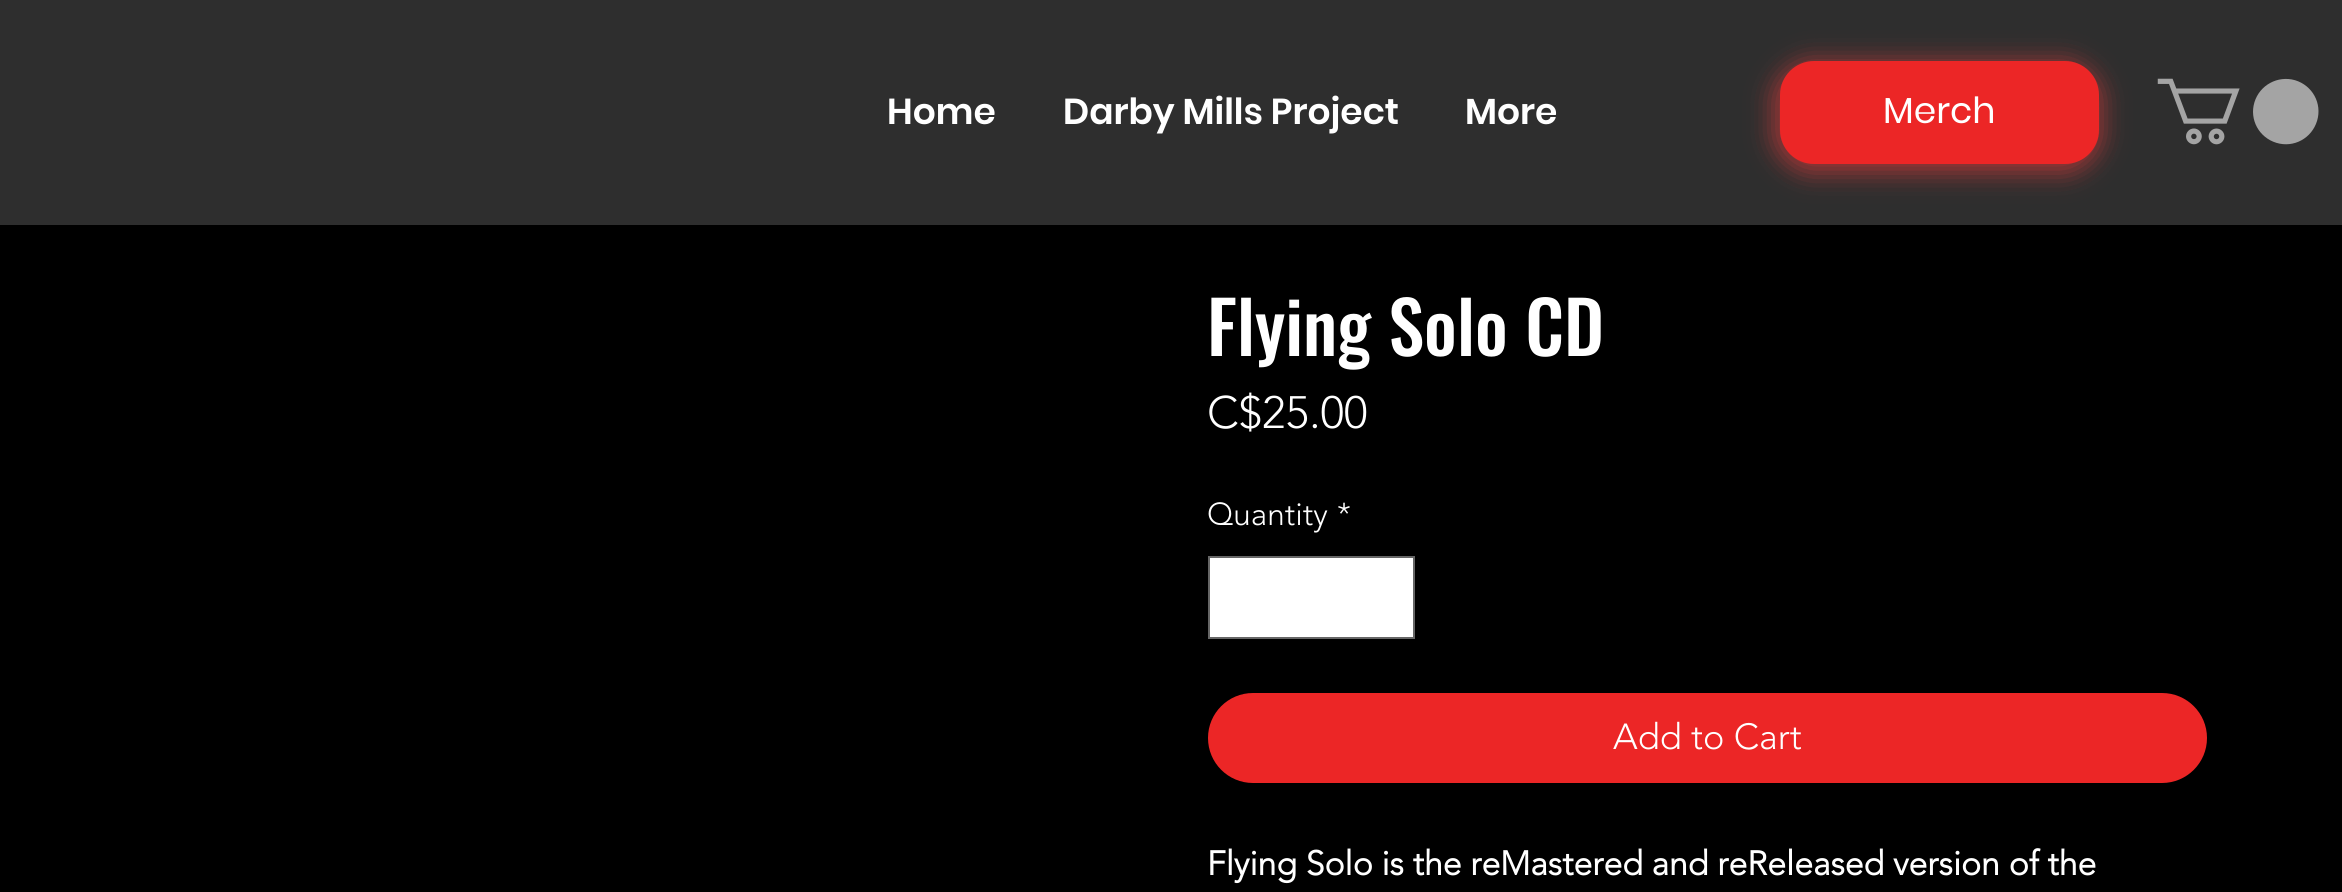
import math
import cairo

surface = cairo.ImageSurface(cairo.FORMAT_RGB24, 2342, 892)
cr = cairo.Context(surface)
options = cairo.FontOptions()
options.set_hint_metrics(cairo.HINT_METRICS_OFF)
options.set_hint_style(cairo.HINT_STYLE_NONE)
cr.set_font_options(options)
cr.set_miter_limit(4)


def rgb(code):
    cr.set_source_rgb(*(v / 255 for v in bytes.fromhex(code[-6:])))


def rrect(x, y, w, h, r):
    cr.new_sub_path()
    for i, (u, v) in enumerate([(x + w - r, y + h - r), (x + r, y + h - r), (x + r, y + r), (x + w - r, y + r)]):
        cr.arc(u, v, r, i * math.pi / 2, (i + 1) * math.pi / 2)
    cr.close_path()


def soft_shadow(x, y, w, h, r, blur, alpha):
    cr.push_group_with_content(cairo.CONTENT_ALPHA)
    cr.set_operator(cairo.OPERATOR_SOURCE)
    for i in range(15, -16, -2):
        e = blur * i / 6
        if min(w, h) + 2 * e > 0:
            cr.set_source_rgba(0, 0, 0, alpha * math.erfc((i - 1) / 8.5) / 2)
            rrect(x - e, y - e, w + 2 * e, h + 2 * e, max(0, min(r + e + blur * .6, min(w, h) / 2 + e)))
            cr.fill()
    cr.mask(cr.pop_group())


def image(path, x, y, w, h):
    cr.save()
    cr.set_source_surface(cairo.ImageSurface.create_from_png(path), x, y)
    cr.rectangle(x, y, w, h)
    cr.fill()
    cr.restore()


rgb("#2e2e2e")
cr.paint()
rgb("#e83a3a")
soft_shadow(1773, 61, 329, 112, 38, 12.5, 0.62)
rgb("#ec2626")
rrect(1780, 61, 319, 103, 34)
cr.fill()
image("img/1.png", 2157, 78, 162, 67)
rgb("#000000")
cr.rectangle(0, 225, 2342, 667)
cr.fill()
rgb("#ffffff")
cr.rectangle(1209, 557, 205, 81)
cr.fill_preserve()
rgb("#666666")
cr.stroke()
rgb("#ec2626")
rrect(1208, 693, 999, 90, 45)
cr.fill()
cr.select_font_face("Poppins SemiBold")
cr.set_font_size(36)
rgb("#ffffff")
for x, y, s in [
    (887, 124, "Home"),
    (1063, 124, "Darby Mills Project"),
    (1465, 124, "More"),
]:
    cr.move_to(x, y)
    cr.show_text(s)
cr.select_font_face("Poppins")
cr.move_to(1883, 123)
cr.show_text("Merch")
cr.select_font_face("Oswald Medium")
cr.set_font_size(72)
cr.move_to(1207, 356)
cr.show_text("Flying Solo CD")
cr.select_font_face("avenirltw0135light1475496 Light")
cr.set_font_size(45)
cr.move_to(1207, 428)
cr.show_text("C$25.00")
cr.set_font_size(31.5)
cr.move_to(1207, 525)
cr.show_text("Quantity")
cr.move_to(1337, 525)
cr.show_text("*")
cr.set_font_size(36)
cr.move_to(1613, 749)
cr.show_text("Add to Cart")
cr.select_font_face("avenirltw0135light1475496", cairo.FONT_SLANT_NORMAL, cairo.FONT_WEIGHT_BOLD)
cr.set_font_size(33.75)
cr.move_to(1207, 875)
cr.show_text("Flying Solo is the reMastered and reReleased version of the")
surface.write_to_png("page.png")
